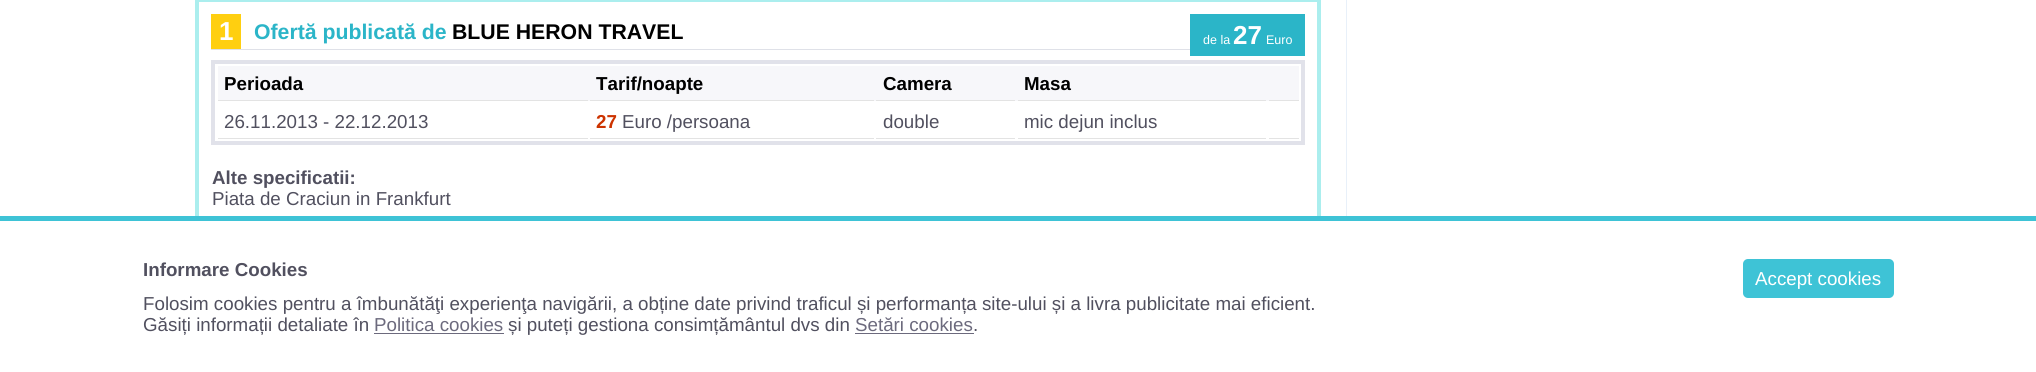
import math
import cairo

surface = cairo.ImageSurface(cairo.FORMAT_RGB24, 2036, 372)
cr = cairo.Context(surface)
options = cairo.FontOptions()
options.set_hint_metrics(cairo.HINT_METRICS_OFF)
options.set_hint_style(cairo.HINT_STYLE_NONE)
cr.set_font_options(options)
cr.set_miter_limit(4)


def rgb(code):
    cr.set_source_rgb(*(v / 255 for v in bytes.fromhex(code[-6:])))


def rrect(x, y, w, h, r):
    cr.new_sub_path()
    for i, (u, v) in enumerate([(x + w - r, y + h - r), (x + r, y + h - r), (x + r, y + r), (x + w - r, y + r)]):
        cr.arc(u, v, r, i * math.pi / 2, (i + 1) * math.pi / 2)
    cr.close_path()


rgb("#ffffff")
cr.paint()
rgb("#e8f0f9")
cr.rectangle(1346, 0, 1, 216)
cr.fill()
cr.rectangle(197, 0, 1122, 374)
rgb("#abeeee")
cr.set_line_width(4)
cr.stroke()
for x, y, w, h, color in [
    (211, 14, 30, 35, "#ffcf10"),
    (211, 49, 979, 1, "#dfe1e8"),
    (1190, 14, 115, 42, "#2bb5c8"),
]:
    rgb(color)
    cr.rectangle(x, y, w, h)
    cr.fill()
cr.rectangle(213, 62, 1090, 81)
rgb("#e1e2ea")
cr.stroke()
for x, y, w, h, color in [
    (218, 66, 1081, 35, "#f7f7fa"),
    (218, 100, 370, 1, "#e3e3e3"),
    (590, 100, 284, 1, "#e3e3e3"),
    (876, 100, 139, 1, "#e3e3e3"),
    (1018, 100, 248, 1, "#e3e3e3"),
    (1269, 100, 30, 1, "#e3e3e3"),
    (218, 138, 370, 1, "#e3e3e3"),
    (590, 138, 284, 1, "#e3e3e3"),
    (876, 138, 139, 1, "#e3e3e3"),
    (1018, 138, 248, 1, "#e3e3e3"),
    (1269, 138, 30, 1, "#e3e3e3"),
    (195, 221, 1126, 151, "#ffffff"),
    (0, 216, 2036, 5, "#3ec3d6"),
]:
    rgb(color)
    cr.rectangle(x, y, w, h)
    cr.fill()
rrect(1743, 259, 151, 39, 5)
cr.fill()
rgb("#6c6a7d")
cr.rectangle(374, 333, 130, 1)
cr.fill()
cr.rectangle(855, 333, 119, 1)
cr.fill()
cr.select_font_face("Liberation Sans", cairo.FONT_SLANT_NORMAL, cairo.FONT_WEIGHT_BOLD)
cr.set_font_size(26)
rgb("#ffffff")
cr.move_to(219, 40)
cr.show_text("1")
cr.set_font_size(21.25)
rgb("#2bb5c8")
cr.move_to(254, 39)
cr.show_text("Ofertă publicată de")
rgb("#000000")
cr.move_to(452, 39)
cr.show_text("BLUE HERON TRAVEL")
cr.select_font_face("Liberation Sans")
cr.set_font_size(12.5)
rgb("#ffffff")
cr.move_to(1203, 44)
cr.show_text("de la")
cr.select_font_face("Liberation Sans", cairo.FONT_SLANT_NORMAL, cairo.FONT_WEIGHT_BOLD)
cr.set_font_size(26)
cr.move_to(1233, 44)
cr.show_text("27")
cr.select_font_face("Liberation Sans")
cr.set_font_size(12.5)
cr.move_to(1266, 44)
cr.show_text("Euro")
cr.select_font_face("Liberation Sans", cairo.FONT_SLANT_NORMAL, cairo.FONT_WEIGHT_BOLD)
cr.set_font_size(18.75)
rgb("#000000")
for x, y, s in [
    (224, 90, "Perioada"),
    (596, 90, "Tarif/noapte"),
    (883, 90, "Camera"),
    (1024, 90, "Masa"),
]:
    cr.move_to(x, y)
    cr.show_text(s)
cr.select_font_face("Liberation Sans")
rgb("#51505f")
cr.move_to(224, 128)
cr.show_text("26.11.2013 - 22.12.2013")
cr.select_font_face("Liberation Sans", cairo.FONT_SLANT_NORMAL, cairo.FONT_WEIGHT_BOLD)
rgb("#cc3300")
cr.move_to(596, 128)
cr.show_text("27")
cr.select_font_face("Liberation Sans")
rgb("#51505f")
for x, y, s in [
    (622, 128, "Euro /persoana"),
    (883, 128, "double"),
    (1024, 128, "mic dejun inclus"),
]:
    cr.move_to(x, y)
    cr.show_text(s)
cr.select_font_face("Liberation Sans", cairo.FONT_SLANT_NORMAL, cairo.FONT_WEIGHT_BOLD)
cr.move_to(212, 184)
cr.show_text("Alte specificatii:")
cr.select_font_face("Liberation Sans")
cr.move_to(212, 205)
cr.show_text("Piata de Craciun in Frankfurt")
cr.select_font_face("Liberation Sans", cairo.FONT_SLANT_NORMAL, cairo.FONT_WEIGHT_BOLD)
cr.move_to(143, 276)
cr.show_text("Informare Cookies")
cr.select_font_face("Liberation Sans")
rgb("#ffffff")
cr.move_to(1755, 285)
cr.show_text("Accept cookies")
rgb("#51505f")
cr.move_to(143, 310)
cr.show_text("Folosim cookies pentru a îmbunătăţi experienţa navigării, a obține date privind traficul și performanța site-ului și a livra publicitate mai eficient.")
cr.move_to(143, 331)
cr.show_text("Găsiți informații detaliate în")
rgb("#6c6a7d")
cr.move_to(374, 331)
cr.show_text("Politica cookies")
rgb("#51505f")
cr.move_to(508, 331)
cr.show_text("și puteți gestiona consimțământul dvs din")
rgb("#6c6a7d")
cr.move_to(855, 331)
cr.show_text("Setări cookies")
rgb("#51505f")
cr.move_to(973, 331)
cr.show_text(".")
surface.write_to_png("page.png")
